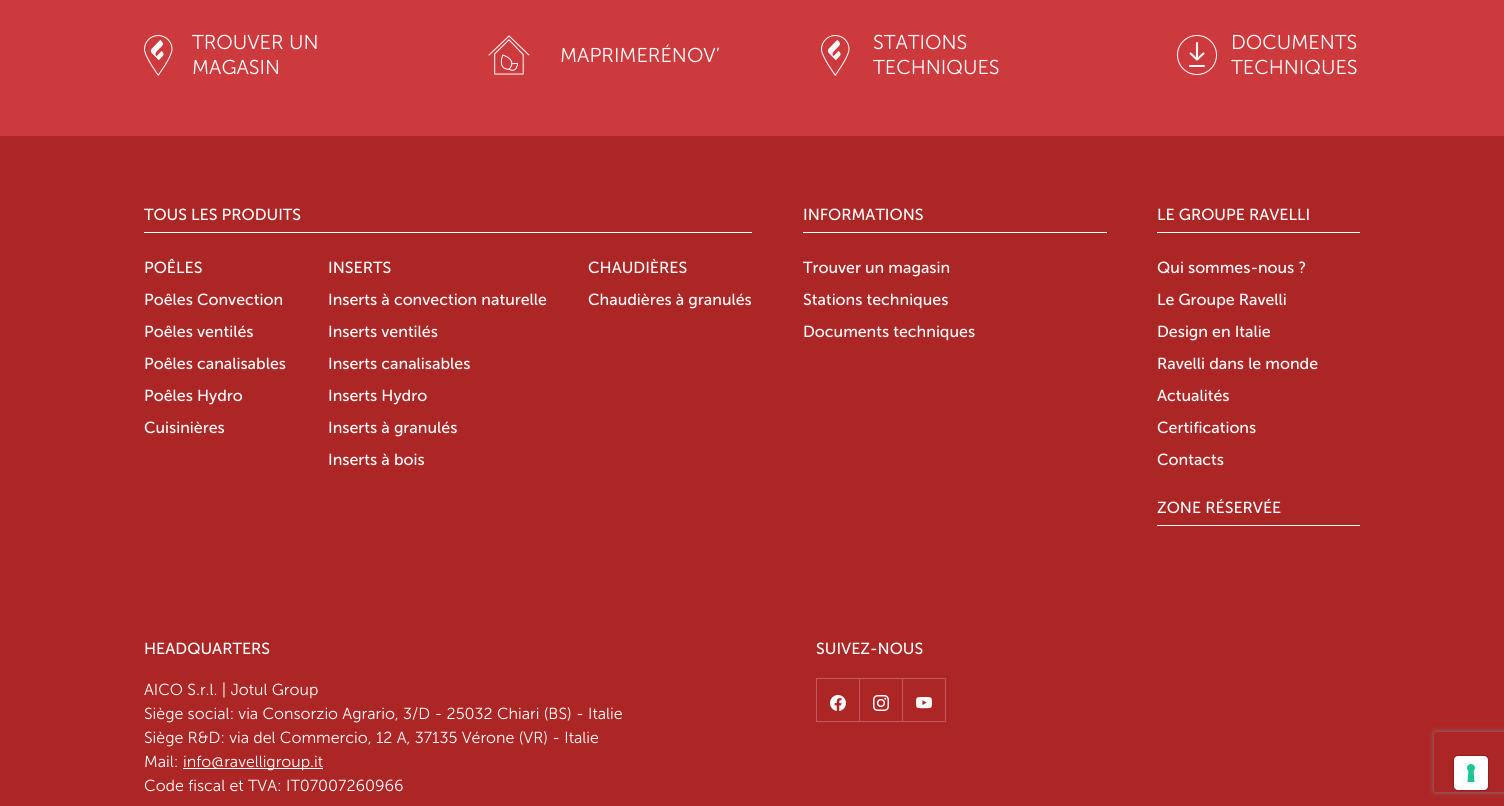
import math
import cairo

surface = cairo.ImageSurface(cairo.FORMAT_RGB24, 1504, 806)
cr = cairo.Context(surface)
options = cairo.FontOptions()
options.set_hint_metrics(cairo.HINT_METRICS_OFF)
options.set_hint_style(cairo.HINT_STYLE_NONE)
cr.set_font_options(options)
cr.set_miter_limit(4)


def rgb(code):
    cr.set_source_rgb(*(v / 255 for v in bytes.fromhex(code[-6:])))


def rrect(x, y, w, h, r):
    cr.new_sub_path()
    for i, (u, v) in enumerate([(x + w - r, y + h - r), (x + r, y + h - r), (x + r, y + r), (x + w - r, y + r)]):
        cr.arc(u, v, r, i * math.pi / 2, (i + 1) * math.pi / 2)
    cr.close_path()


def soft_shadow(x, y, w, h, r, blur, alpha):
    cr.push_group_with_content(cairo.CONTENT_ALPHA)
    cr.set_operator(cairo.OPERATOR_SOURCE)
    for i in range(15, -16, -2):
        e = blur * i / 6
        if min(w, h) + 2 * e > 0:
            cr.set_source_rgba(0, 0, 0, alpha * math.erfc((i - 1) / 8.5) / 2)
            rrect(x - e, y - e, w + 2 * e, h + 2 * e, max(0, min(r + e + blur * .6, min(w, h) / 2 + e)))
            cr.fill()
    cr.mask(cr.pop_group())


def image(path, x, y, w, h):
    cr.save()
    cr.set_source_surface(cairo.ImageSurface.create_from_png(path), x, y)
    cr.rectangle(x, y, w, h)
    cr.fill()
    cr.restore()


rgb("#cd3a3e")
cr.paint()
image("img/1.png", 144, 35, 29, 41)
image("img/2.png", 488, 35, 42, 40)
image("img/1.png", 821, 35, 29, 41)
image("img/3.png", 1177, 35, 40, 40)
for x, y, w, h, color in [
    (0, 136, 1504, 670, "#ad2626"),
    (144, 232, 608, 1, "#ffffff"),
    (803, 232, 304, 1, "#ffffff"),
    (1157, 232, 203, 1, "#ffffff"),
    (1157, 525, 203, 1, "#f8f9fa"),
    (183, 768, 140, 1, "#ffffff"),
]:
    rgb(color)
    cr.rectangle(x, y, w, h)
    cr.fill()
cr.rectangle(816.5, 678.5, 43, 43)
rgb("#c15a5a")
cr.set_line_width(1)
cr.stroke()
image("img/4.png", 830, 695, 16, 16)
cr.new_path()
cr.move_to(860, 678)
cr.line_to(903, 678)
cr.line_to(902, 679)
cr.line_to(860, 679)
cr.close_path()
cr.fill()
cr.set_source_rgba(1, 1, 1, 0.24)
cr.new_path()
cr.move_to(903, 678)
cr.line_to(903, 722)
cr.line_to(902, 721)
cr.line_to(902, 679)
cr.close_path()
cr.fill()
cr.new_path()
cr.move_to(903, 722)
cr.line_to(860, 722)
cr.line_to(860, 721)
cr.line_to(902, 721)
cr.close_path()
cr.fill()
image("img/5.png", 873, 695, 16, 16)
rgb("#c15a5a")
cr.new_path()
cr.move_to(903, 678)
cr.line_to(946, 678)
cr.line_to(945, 679)
cr.line_to(903, 679)
cr.close_path()
cr.fill()
cr.set_source_rgba(1, 1, 1, 0.24)
cr.new_path()
cr.move_to(946, 678)
cr.line_to(946, 722)
cr.line_to(945, 721)
cr.line_to(945, 679)
cr.close_path()
cr.fill()
cr.new_path()
cr.move_to(946, 722)
cr.line_to(903, 722)
cr.line_to(903, 721)
cr.line_to(945, 721)
cr.close_path()
cr.fill()
image("img/6.png", 916, 697, 16, 12)
cr.save()
cr.set_fill_rule(cairo.FILL_RULE_EVEN_ODD)
cr.new_path()
cr.move_to(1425, 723)
cr.line_to(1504, 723)
cr.line_to(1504, 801)
cr.line_to(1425, 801)
cr.close_path()
cr.move_to(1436, 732)
cr.line_to(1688, 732)
cr.curve_to(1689, 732, 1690, 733, 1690, 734)
cr.line_to(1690, 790)
cr.curve_to(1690, 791, 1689, 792, 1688, 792)
cr.line_to(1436, 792)
cr.curve_to(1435, 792, 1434, 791, 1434, 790)
cr.line_to(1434, 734)
cr.curve_to(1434, 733, 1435, 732, 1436, 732)
cr.close_path()
cr.clip()
rgb("#808080")
soft_shadow(1434, 732, 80, 60, 2, 2.5, 1)
cr.restore()
rrect(1453.5, 755.5, 35, 35, 4.5)
rgb("#932020")
cr.stroke()
rgb("#ffffff")
rrect(1454, 756, 34, 34, 4)
cr.fill()
image("img/7.png", 1467, 764, 8, 18)
cr.select_font_face("Museo Sans Light")
cr.set_font_size(20)
for x, y, s in [
    (192, 49, "TROUVER UN"),
    (192, 74, "MAGASIN"),
    (560, 62, "MAPRIMERÉNOV’"),
    (873, 49, "STATIONS"),
    (873, 74, "TECHNIQUES"),
    (1231, 49, "DOCUMENTS"),
    (1231, 74, "TECHNIQUES"),
]:
    cr.move_to(x, y)
    cr.show_text(s)
cr.select_font_face("Museo Sans Medium")
cr.set_font_size(16)
for x, y, s in [
    (144, 220, "TOUS LES PRODUITS"),
    (144, 273, "POÊLES"),
    (144, 305, "Poêles Convection"),
    (144, 337, "Poêles ventilés"),
    (144, 369, "Poêles canalisables"),
    (144, 401, "Poêles Hydro"),
    (144, 433, "Cuisinières"),
    (328, 273, "INSERTS"),
    (328, 305, "Inserts à convection naturelle"),
    (328, 337, "Inserts ventilés"),
    (328, 369, "Inserts canalisables"),
    (328, 401, "Inserts Hydro"),
    (328, 433, "Inserts à granulés"),
    (328, 465, "Inserts à bois"),
    (588, 273, "CHAUDIÈRES"),
    (588, 305, "Chaudières à granulés"),
    (803, 220, "INFORMATIONS"),
    (803, 273, "Trouver un magasin"),
    (803, 305, "Stations techniques"),
    (803, 337, "Documents techniques"),
    (1157, 220, "LE GROUPE RAVELLI"),
    (1157, 273, "Qui sommes-nous ?"),
    (1157, 305, "Le Groupe Ravelli"),
    (1157, 337, "Design en Italie"),
    (1157, 369, "Ravelli dans le monde"),
    (1157, 401, "Actualités"),
    (1157, 433, "Certifications"),
    (1157, 465, "Contacts"),
    (1157, 513, "ZONE RÉSERVÉE"),
    (144, 654, "HEADQUARTERS"),
]:
    cr.move_to(x, y)
    cr.show_text(s)
cr.select_font_face("Museo Sans Light")
for x, y, s in [
    (144, 695, "AICO S.r.l. | Jotul Group"),
    (144, 719, "Siège social: via Consorzio Agrario, 3/D - 25032 Chiari (BS) - Italie"),
    (144, 743, "Siège R&D: via del Commercio, 12 A, 37135 Vérone (VR) - Italie"),
    (144, 767, "Mail:"),
    (183, 767, "info@ravelligroup.it"),
    (144, 791, "Code fiscal et TVA: IT07007260966"),
]:
    cr.move_to(x, y)
    cr.show_text(s)
cr.select_font_face("Museo Sans Medium")
cr.move_to(816, 654)
cr.show_text("SUIVEZ-NOUS")
surface.write_to_png("page.png")
